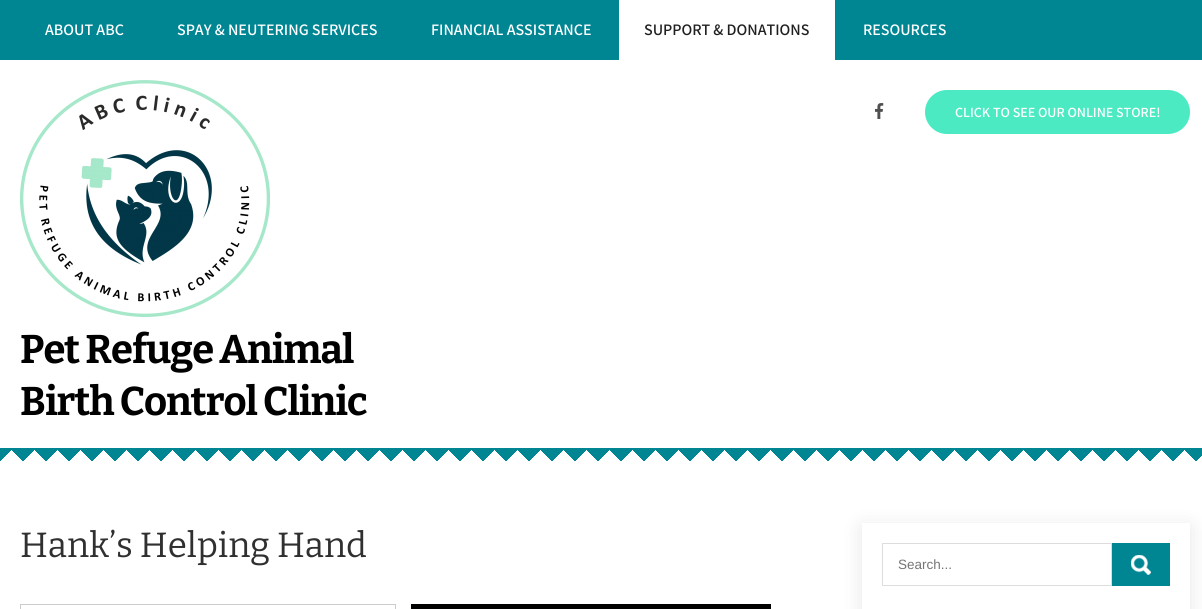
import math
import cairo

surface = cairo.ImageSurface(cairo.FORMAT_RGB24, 1202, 609)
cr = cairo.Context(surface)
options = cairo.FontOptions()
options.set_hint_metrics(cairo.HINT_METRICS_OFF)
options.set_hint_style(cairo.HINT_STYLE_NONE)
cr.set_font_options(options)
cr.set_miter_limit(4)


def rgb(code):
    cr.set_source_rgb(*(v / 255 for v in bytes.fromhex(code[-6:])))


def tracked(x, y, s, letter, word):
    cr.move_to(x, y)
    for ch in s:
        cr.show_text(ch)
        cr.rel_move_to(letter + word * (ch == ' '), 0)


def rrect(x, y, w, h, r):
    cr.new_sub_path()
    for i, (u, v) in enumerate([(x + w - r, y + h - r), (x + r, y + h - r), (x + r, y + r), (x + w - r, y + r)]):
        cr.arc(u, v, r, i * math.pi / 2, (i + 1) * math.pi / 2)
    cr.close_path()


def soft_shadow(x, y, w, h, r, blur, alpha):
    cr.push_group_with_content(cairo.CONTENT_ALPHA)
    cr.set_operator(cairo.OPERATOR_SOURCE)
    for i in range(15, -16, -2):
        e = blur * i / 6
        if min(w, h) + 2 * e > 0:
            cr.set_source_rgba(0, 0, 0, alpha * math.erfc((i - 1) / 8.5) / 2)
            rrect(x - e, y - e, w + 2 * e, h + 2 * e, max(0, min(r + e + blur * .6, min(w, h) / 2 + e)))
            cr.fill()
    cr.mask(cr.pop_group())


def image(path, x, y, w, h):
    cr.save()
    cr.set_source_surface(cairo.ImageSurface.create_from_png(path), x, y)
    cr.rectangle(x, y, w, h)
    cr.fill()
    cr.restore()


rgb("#ffffff")
cr.paint()
rgb("#008593")
cr.rectangle(0, 0, 1202, 60)
cr.fill()
rgb("#ffffff")
cr.rectangle(619, 0, 216, 60)
cr.fill()
image("img/1.png", 875, 103, 9, 16)
rgb("#4beac2")
rrect(925, 90, 265, 44, 22)
cr.fill()
image("img/2.png", 20, 80, 250, 237)
image("img/3.png", 12, 448, 1184, 13)
image("img/4.png", 0, 448, 1202, 13)
cr.rectangle(20.5, 604.5, 375, 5)
rgb("#cccccc")
cr.set_line_width(1)
cr.stroke()
rgb("#010200")
cr.rectangle(411, 604, 360, 5)
cr.fill()
cr.save()
cr.set_fill_rule(cairo.FILL_RULE_EVEN_ODD)
cr.new_path()
cr.move_to(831, 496)
cr.line_to(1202, 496)
cr.line_to(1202, 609)
cr.line_to(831, 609)
cr.close_path()
cr.move_to(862, 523)
cr.line_to(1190, 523)
cr.line_to(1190, 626)
cr.line_to(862, 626)
cr.close_path()
cr.clip()
rgb("#000000")
soft_shadow(862, 527, 328, 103, 0, 10, 0.1)
cr.restore()
cr.rectangle(882.5, 543.5, 229, 42)
rgb("#dddddd")
cr.stroke()
rgb("#008593")
cr.rectangle(1112, 543, 58, 43)
cr.fill()
image("img/5.png", 1131, 555, 20, 20)
cr.select_font_face("Assistant SemiBold")
cr.set_font_size(16)
rgb("#ffffff")
for x, y, s in [
    (45, 35, "ABOUT ABC"),
    (177, 35, "SPAY & NEUTERING SERVICES"),
    (431, 35, "FINANCIAL ASSISTANCE"),
]:
    cr.move_to(x, y)
    cr.show_text(s)
rgb("#202020")
cr.move_to(644, 35)
cr.show_text("SUPPORT & DONATIONS")
rgb("#ffffff")
cr.move_to(863, 35)
cr.show_text("RESOURCES")
cr.set_font_size(14)
cr.move_to(955, 117)
cr.show_text("CLICK TO SEE OUR ONLINE STORE!")
cr.select_font_face("Bitter", cairo.FONT_SLANT_NORMAL, cairo.FONT_WEIGHT_BOLD)
cr.set_font_size(40)
rgb("#000000")
tracked(20, 363, "Pet Refuge Animal", -1, 0)
tracked(20, 415, "Birth Control Clinic", -1, 0)
cr.select_font_face("Bitter")
cr.set_font_size(35)
rgb("#303030")
cr.move_to(20, 557)
cr.show_text("Hank’s Helping Hand")
cr.select_font_face("Liberation Sans")
cr.set_font_size(13.5)
rgb("#757575")
cr.move_to(898, 569)
cr.show_text("Search...")
surface.write_to_png("page.png")
